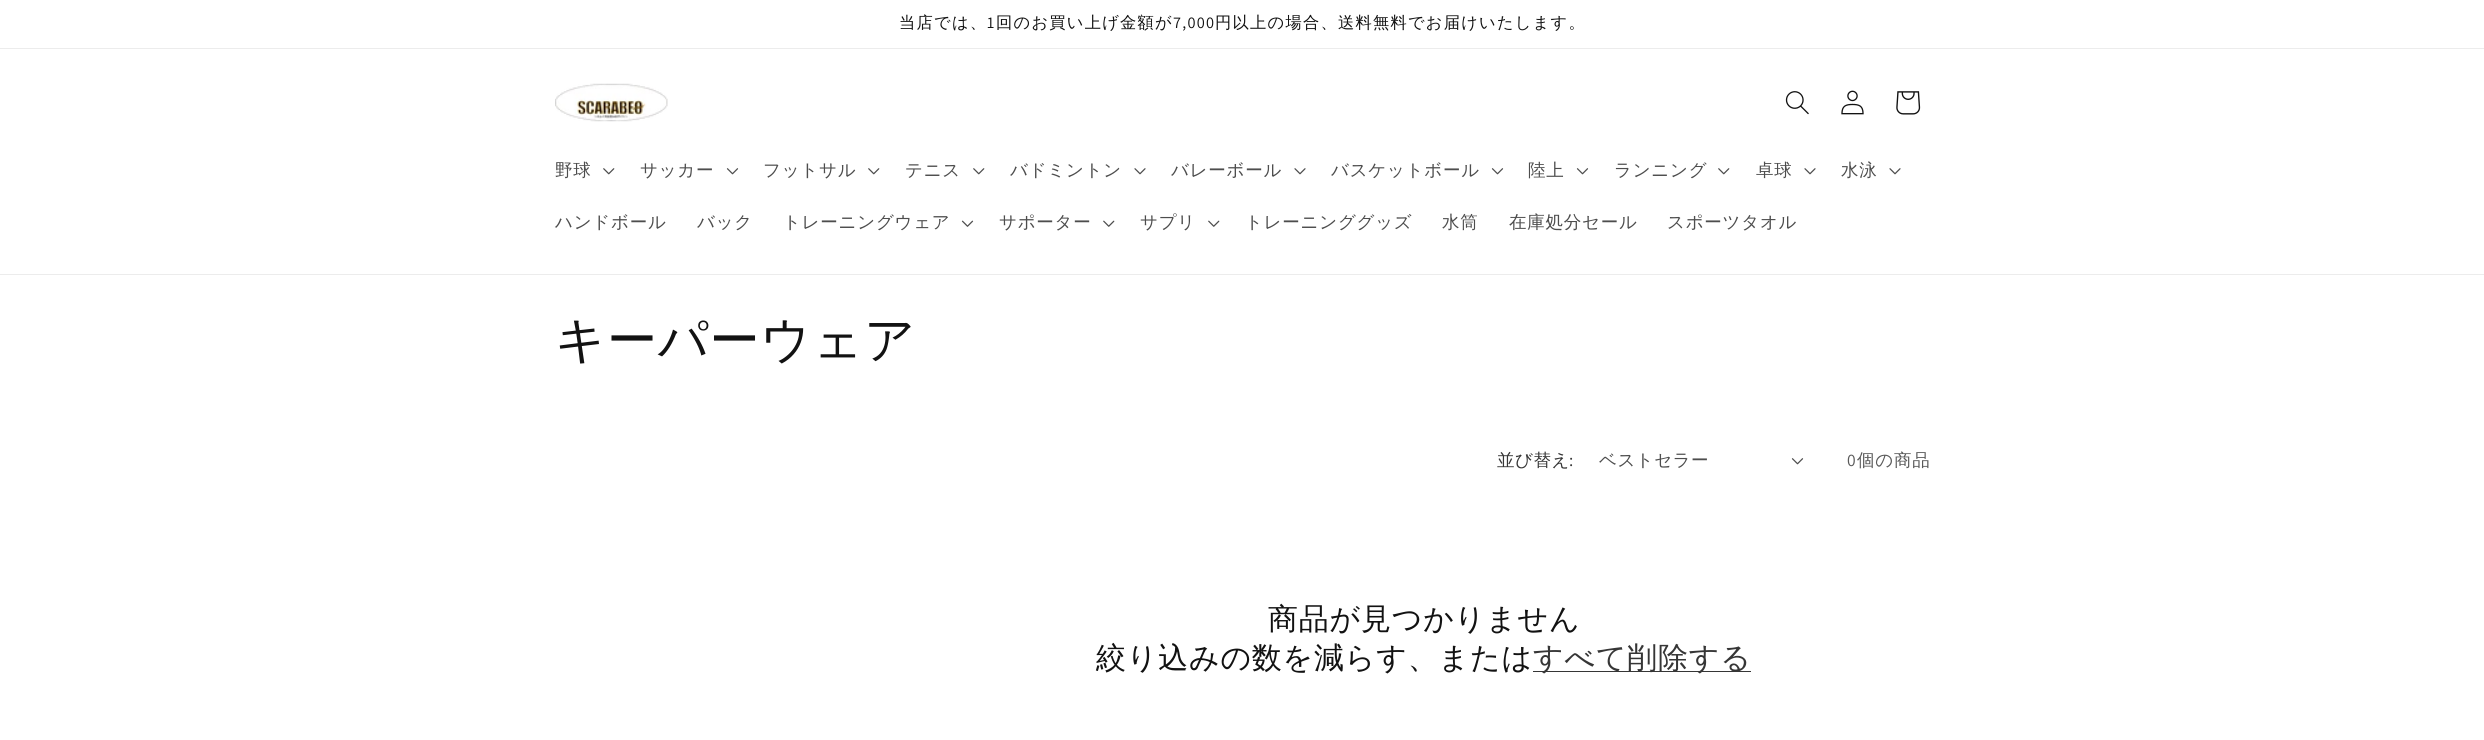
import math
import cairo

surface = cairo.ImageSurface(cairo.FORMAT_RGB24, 2484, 740)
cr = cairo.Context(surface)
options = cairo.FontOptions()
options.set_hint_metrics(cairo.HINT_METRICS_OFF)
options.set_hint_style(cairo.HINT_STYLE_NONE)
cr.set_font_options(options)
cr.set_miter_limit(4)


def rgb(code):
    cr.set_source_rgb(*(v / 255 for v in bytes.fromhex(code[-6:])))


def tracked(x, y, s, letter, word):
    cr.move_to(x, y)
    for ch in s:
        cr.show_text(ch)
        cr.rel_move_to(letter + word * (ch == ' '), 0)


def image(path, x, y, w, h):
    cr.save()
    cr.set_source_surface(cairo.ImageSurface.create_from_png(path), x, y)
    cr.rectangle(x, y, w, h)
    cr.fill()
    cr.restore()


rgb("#ffffff")
cr.paint()
rgb("#ececec")
cr.rectangle(0, 48, 2484, 1)
cr.fill()
cr.rectangle(0, 274, 2484, 1)
cr.fill()
image("img/1.png", 555, 83, 113, 39)
image("img/2.png", 1785, 91, 24, 24)
image("img/3.png", 1841, 90, 23, 25)
image("img/4.png", 1896, 91, 25, 24)
image("img/5.png", 603, 168, 12, 7)
image("img/6.png", 726, 168, 13, 7)
image("img/5.png", 868, 168, 12, 7)
image("img/5.png", 973, 168, 12, 7)
image("img/7.png", 1134, 168, 12, 7)
image("img/7.png", 1294, 168, 12, 7)
image("img/6.png", 1491, 168, 13, 7)
image("img/6.png", 1576, 168, 13, 7)
image("img/5.png", 1718, 168, 12, 7)
image("img/7.png", 1804, 168, 12, 7)
image("img/7.png", 1889, 168, 12, 7)
image("img/8.png", 961, 220, 13, 7)
image("img/9.png", 1103, 220, 12, 7)
image("img/9.png", 1208, 220, 12, 7)
image("img/6.png", 1791, 458, 13, 7)
rgb("#363636")
cr.rectangle(1533, 671, 218, 1)
cr.fill()
cr.select_font_face("WenQuanYi Zen Hei Medium")
cr.set_font_size(16.25)
rgb("#121212")
tracked(899, 28, "当店では、", 1.25, 0)
cr.select_font_face("Assistant")
tracked(987, 28, "1", 1.25, 0)
cr.select_font_face("WenQuanYi Zen Hei Medium")
tracked(996, 28, "回のお買い上げ金額が", 1.25, 0)
cr.select_font_face("Assistant")
tracked(1173, 28, "7,000", 1.25, 0)
cr.select_font_face("WenQuanYi Zen Hei Medium")
tracked(1215, 28, "円以上の場合、送料無料でお届けいたします。", 1.25, 0)
cr.set_font_size(17.5)
rgb("#4d4d4d")
for x, y, s in [
    (555, 176, "野球"),
    (640, 176, "サッカー"),
    (763, 176, "フットサル"),
    (905, 176, "テニス"),
    (1010, 176, "バドミントン"),
    (1171, 176, "バレーボール"),
    (1331, 176, "バスケットボール"),
    (1528, 176, "陸上"),
    (1614, 176, "ランニング"),
    (1756, 176, "卓球"),
    (1841, 176, "水泳"),
    (555, 228, "ハンドボール"),
    (697, 228, "バック"),
    (783, 228, "トレーニングウェア"),
    (999, 228, "サポーター"),
    (1140, 228, "サプリ"),
    (1245, 228, "トレーニンググッズ"),
    (1442, 228, "水筒"),
    (1509, 228, "在庫処分セール"),
    (1667, 228, "スポーツタオル"),
]:
    tracked(x, y, s, 0.75, 0)
cr.set_font_size(50)
rgb("#121212")
tracked(555, 357, "キーパーウェア", 0.75, 0)
cr.set_font_size(17.5)
rgb("#363636")
tracked(1497, 466, "並び替え", 0.5, 0)
cr.select_font_face("Assistant")
tracked(1569, 466, ":", 0.5, 0)
cr.select_font_face("WenQuanYi Zen Hei Medium")
rgb("#4d4d4d")
tracked(1599, 466, "ベストセラー", 0.5, 0)
cr.select_font_face("Assistant")
rgb("#595959")
tracked(1847, 466, "0", 0.75, 0)
cr.select_font_face("WenQuanYi Zen Hei Medium")
tracked(1857, 466, "個の商品", 0.75, 0)
cr.set_font_size(30)
rgb("#121212")
tracked(1268, 629, "商品が見つかりません", 0.75, 0)
tracked(1096, 668, "絞り込みの数を減らす、または", 0.75, 0)
rgb("#363636")
tracked(1533, 668, "すべて削除する", 0.75, 0)
surface.write_to_png("page.png")
